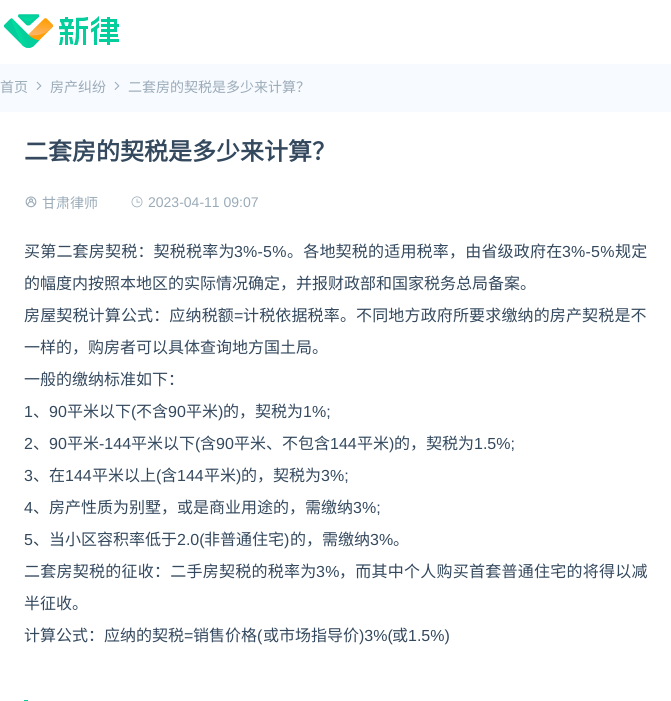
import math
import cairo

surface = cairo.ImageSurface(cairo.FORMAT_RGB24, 671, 701)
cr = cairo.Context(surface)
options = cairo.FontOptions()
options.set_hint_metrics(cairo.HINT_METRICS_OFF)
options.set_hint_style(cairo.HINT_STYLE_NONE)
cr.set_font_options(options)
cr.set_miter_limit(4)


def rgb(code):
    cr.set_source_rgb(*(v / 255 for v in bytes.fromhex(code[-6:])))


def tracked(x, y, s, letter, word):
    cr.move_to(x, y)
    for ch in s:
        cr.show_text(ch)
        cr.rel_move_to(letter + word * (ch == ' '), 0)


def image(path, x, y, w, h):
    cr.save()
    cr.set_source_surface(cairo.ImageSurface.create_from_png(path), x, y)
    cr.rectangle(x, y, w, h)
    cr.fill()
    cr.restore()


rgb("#f7faff")
cr.paint()
rgb("#ffffff")
cr.rectangle(0, 0, 671, 64)
cr.fill()
image("img/1.png", 4, 14, 115, 34)
image("img/2.png", 36, 81, 6, 9)
image("img/2.png", 114, 81, 6, 9)
cr.rectangle(0, 112, 671, 589)
cr.fill()
image("img/3.png", 25, 196, 12, 12)
image("img/4.png", 131, 196, 12, 12)
rgb("#04ce9b")
cr.rectangle(24, 700, 4, 1)
cr.fill()
cr.select_font_face("Noto Sans CJK SC")
cr.set_font_size(14)
rgb("#9aabb8")
for x, y, s in [
    (0, 92, "首页"),
    (50, 92, "房产纠纷"),
    (128, 92, "二套房的契税是多少来计算？"),
]:
    cr.move_to(x, y)
    cr.show_text(s)
cr.select_font_face("Noto Sans CJK SC", cairo.FONT_SLANT_NORMAL, cairo.FONT_WEIGHT_BOLD)
cr.set_font_size(24)
rgb("#34495e")
cr.move_to(24, 160)
cr.show_text("二套房的契税是多少来计算？")
cr.select_font_face("Noto Sans CJK SC")
cr.set_font_size(14)
rgb("#9aabb8")
cr.move_to(42, 208)
cr.show_text("甘肃律师")
cr.select_font_face("Liberation Sans")
cr.move_to(148, 207)
cr.show_text("2023-04-11 09:07")
cr.select_font_face("Noto Sans CJK SC")
cr.set_font_size(16)
rgb("#34495e")
tracked(24, 257, "买第二套房契税：契税税率为", 0.2, 0)
cr.select_font_face("Liberation Sans")
tracked(234, 257, "3%-5%", 0.2, 0)
cr.select_font_face("Noto Sans CJK SC")
tracked(287, 257, "。各地契税的适用税率，由省级政府在", 0.2, 0)
cr.select_font_face("Liberation Sans")
tracked(562, 257, "3%-5%", 0.2, 0)
cr.select_font_face("Noto Sans CJK SC")
tracked(615, 257, "规定", 0.2, 0)
cr.move_to(24, 289)
cr.show_text("的幅度内按照本地区的实际情况确定，并报财政部和国家税务总局备案。")
tracked(24, 321, "房屋契税计算公式：应纳税额", 0.15, 0)
cr.select_font_face("Liberation Sans")
tracked(234, 321, "=", 0.15, 0)
cr.select_font_face("Noto Sans CJK SC")
tracked(243, 321, "计税依据税率。不同地方政府所要求缴纳的房产契税是不", 0.15, 0)
cr.move_to(24, 353)
cr.show_text("一样的，购房者可以具体查询地方国土局。")
cr.move_to(24, 385)
cr.show_text("一般的缴纳标准如下：")
cr.select_font_face("Liberation Sans")
cr.move_to(24, 417)
cr.show_text("1")
cr.select_font_face("Noto Sans CJK SC")
cr.move_to(33, 417)
cr.show_text("、")
cr.select_font_face("Liberation Sans")
cr.move_to(49, 417)
cr.show_text("90")
cr.select_font_face("Noto Sans CJK SC")
cr.move_to(67, 417)
cr.show_text("平米以下")
cr.select_font_face("Liberation Sans")
cr.move_to(131, 417)
cr.show_text("(")
cr.select_font_face("Noto Sans CJK SC")
cr.move_to(136, 417)
cr.show_text("不含")
cr.select_font_face("Liberation Sans")
cr.move_to(168, 417)
cr.show_text("90")
cr.select_font_face("Noto Sans CJK SC")
cr.move_to(186, 417)
cr.show_text("平米")
cr.select_font_face("Liberation Sans")
cr.move_to(218, 417)
cr.show_text(")")
cr.select_font_face("Noto Sans CJK SC")
cr.move_to(223, 417)
cr.show_text("的，契税为")
cr.select_font_face("Liberation Sans")
cr.move_to(303, 417)
cr.show_text("1%;")
cr.move_to(24, 449)
cr.show_text("2")
cr.select_font_face("Noto Sans CJK SC")
cr.move_to(33, 449)
cr.show_text("、")
cr.select_font_face("Liberation Sans")
cr.move_to(49, 449)
cr.show_text("90")
cr.select_font_face("Noto Sans CJK SC")
cr.move_to(67, 449)
cr.show_text("平米")
cr.select_font_face("Liberation Sans")
cr.move_to(99, 449)
cr.show_text("-144")
cr.select_font_face("Noto Sans CJK SC")
cr.move_to(131, 449)
cr.show_text("平米以下")
cr.select_font_face("Liberation Sans")
cr.move_to(195, 449)
cr.show_text("(")
cr.select_font_face("Noto Sans CJK SC")
cr.move_to(200, 449)
cr.show_text("含")
cr.select_font_face("Liberation Sans")
cr.move_to(216, 449)
cr.show_text("90")
cr.select_font_face("Noto Sans CJK SC")
cr.move_to(234, 449)
cr.show_text("平米、不包含")
cr.select_font_face("Liberation Sans")
cr.move_to(330, 449)
cr.show_text("144")
cr.select_font_face("Noto Sans CJK SC")
cr.move_to(357, 449)
cr.show_text("平米")
cr.select_font_face("Liberation Sans")
cr.move_to(389, 449)
cr.show_text(")")
cr.select_font_face("Noto Sans CJK SC")
cr.move_to(394, 449)
cr.show_text("的，契税为")
cr.select_font_face("Liberation Sans")
cr.move_to(474, 449)
cr.show_text("1.5%;")
cr.move_to(24, 481)
cr.show_text("3")
cr.select_font_face("Noto Sans CJK SC")
cr.move_to(33, 481)
cr.show_text("、在")
cr.select_font_face("Liberation Sans")
cr.move_to(65, 481)
cr.show_text("144")
cr.select_font_face("Noto Sans CJK SC")
cr.move_to(92, 481)
cr.show_text("平米以上")
cr.select_font_face("Liberation Sans")
cr.move_to(156, 481)
cr.show_text("(")
cr.select_font_face("Noto Sans CJK SC")
cr.move_to(161, 481)
cr.show_text("含")
cr.select_font_face("Liberation Sans")
cr.move_to(177, 481)
cr.show_text("144")
cr.select_font_face("Noto Sans CJK SC")
cr.move_to(204, 481)
cr.show_text("平米")
cr.select_font_face("Liberation Sans")
cr.move_to(236, 481)
cr.show_text(")")
cr.select_font_face("Noto Sans CJK SC")
cr.move_to(241, 481)
cr.show_text("的，契税为")
cr.select_font_face("Liberation Sans")
cr.move_to(321, 481)
cr.show_text("3%;")
cr.move_to(24, 513)
cr.show_text("4")
cr.select_font_face("Noto Sans CJK SC")
cr.move_to(33, 513)
cr.show_text("、房产性质为别墅，或是商业用途的，需缴纳")
cr.select_font_face("Liberation Sans")
cr.move_to(353, 513)
cr.show_text("3%;")
cr.move_to(24, 545)
cr.show_text("5")
cr.select_font_face("Noto Sans CJK SC")
cr.move_to(33, 545)
cr.show_text("、当小区容积率低于")
cr.select_font_face("Liberation Sans")
cr.move_to(177, 545)
cr.show_text("2.0(")
cr.select_font_face("Noto Sans CJK SC")
cr.move_to(204, 545)
cr.show_text("非普通住宅")
cr.select_font_face("Liberation Sans")
cr.move_to(284, 545)
cr.show_text(")")
cr.select_font_face("Noto Sans CJK SC")
cr.move_to(290, 545)
cr.show_text("的，需缴纳")
cr.select_font_face("Liberation Sans")
cr.move_to(370, 545)
cr.show_text("3%")
cr.select_font_face("Noto Sans CJK SC")
cr.move_to(393, 545)
cr.show_text("。")
tracked(24, 577, "二套房契税的征收：二手房契税的税率为", 0.25, 0)
cr.select_font_face("Liberation Sans")
tracked(316, 577, "3%", 0.25, 0)
cr.select_font_face("Noto Sans CJK SC")
tracked(339, 577, "，而其中个人购买首套普通住宅的将得以减", 0.25, 0)
cr.move_to(24, 609)
cr.show_text("半征收。")
cr.move_to(24, 641)
cr.show_text("计算公式：应纳的契税")
cr.select_font_face("Liberation Sans")
cr.move_to(184, 641)
cr.show_text("=")
cr.select_font_face("Noto Sans CJK SC")
cr.move_to(193, 641)
cr.show_text("销售价格")
cr.select_font_face("Liberation Sans")
cr.move_to(257, 641)
cr.show_text("(")
cr.select_font_face("Noto Sans CJK SC")
cr.move_to(263, 641)
cr.show_text("或市场指导价")
cr.select_font_face("Liberation Sans")
cr.move_to(359, 641)
cr.show_text(")3%(")
cr.select_font_face("Noto Sans CJK SC")
cr.move_to(392, 641)
cr.show_text("或")
cr.select_font_face("Liberation Sans")
cr.move_to(408, 641)
cr.show_text("1.5%)")
surface.write_to_png("page.png")
